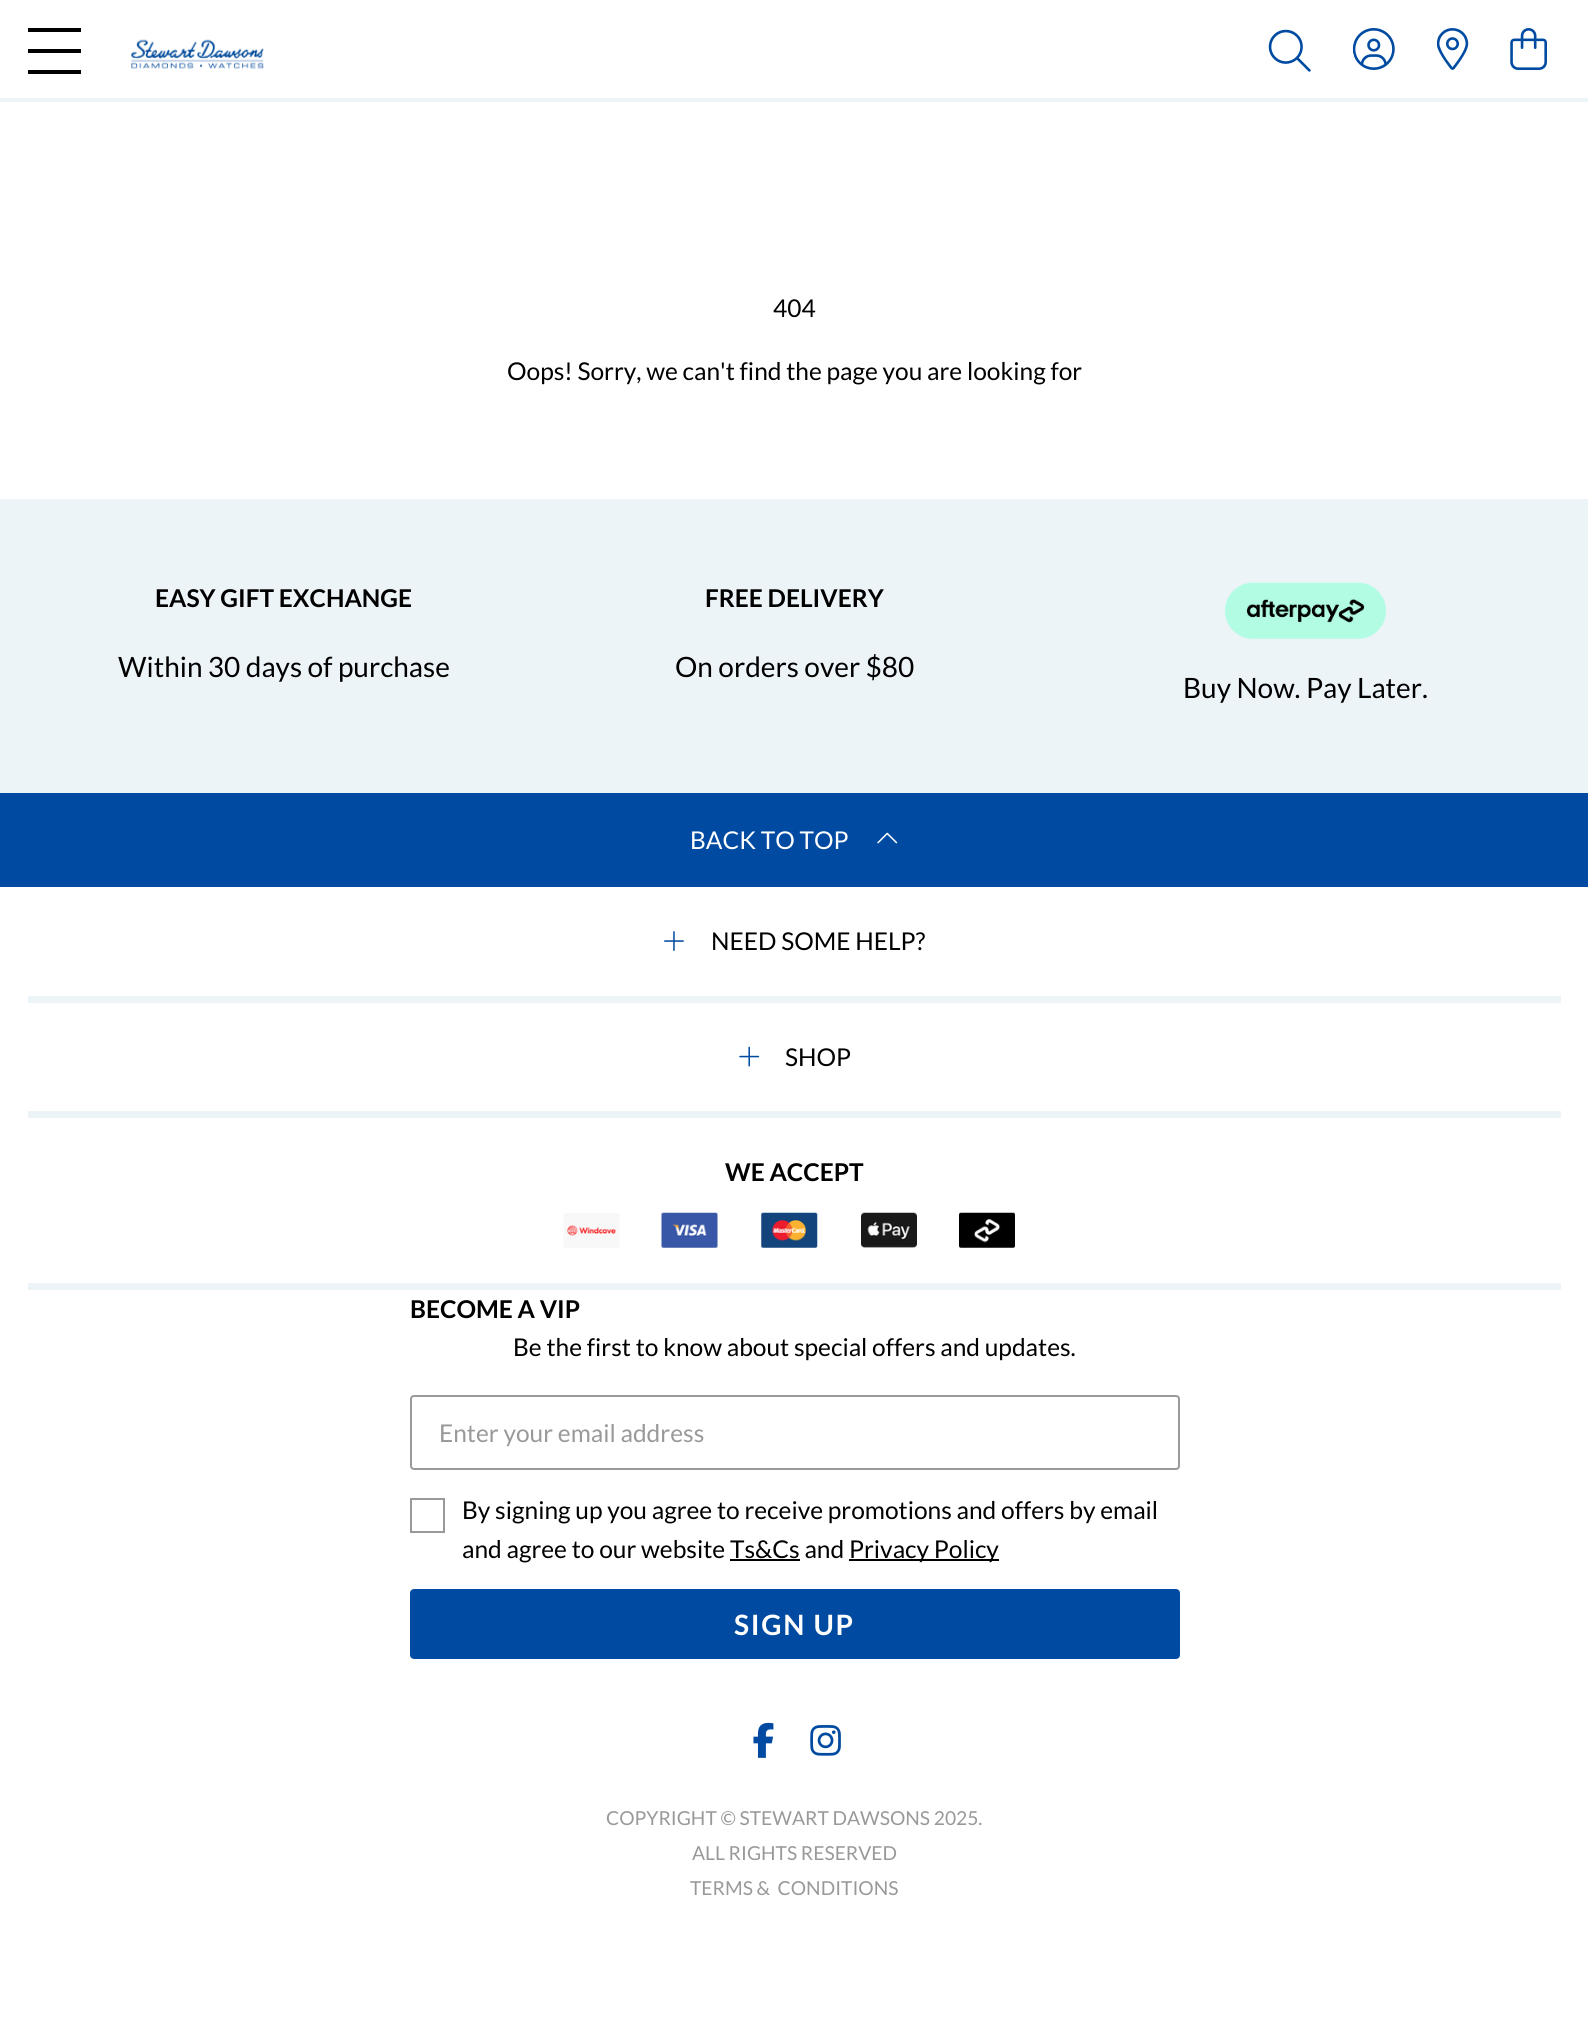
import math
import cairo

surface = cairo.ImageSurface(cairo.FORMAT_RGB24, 1588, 2037)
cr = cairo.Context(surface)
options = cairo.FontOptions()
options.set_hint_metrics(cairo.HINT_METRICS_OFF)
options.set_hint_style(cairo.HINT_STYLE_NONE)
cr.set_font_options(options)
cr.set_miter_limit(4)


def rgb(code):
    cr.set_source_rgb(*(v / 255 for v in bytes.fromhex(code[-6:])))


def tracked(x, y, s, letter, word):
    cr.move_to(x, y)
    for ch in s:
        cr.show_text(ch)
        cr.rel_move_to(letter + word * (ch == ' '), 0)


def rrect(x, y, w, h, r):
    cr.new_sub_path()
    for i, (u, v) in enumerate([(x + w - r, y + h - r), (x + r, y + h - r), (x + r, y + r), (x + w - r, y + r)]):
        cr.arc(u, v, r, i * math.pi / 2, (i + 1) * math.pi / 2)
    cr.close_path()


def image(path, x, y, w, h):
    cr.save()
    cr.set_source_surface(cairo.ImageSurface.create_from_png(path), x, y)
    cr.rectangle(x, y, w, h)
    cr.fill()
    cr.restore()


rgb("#ffffff")
cr.paint()
for x, y, w, h, color in [
    (0, 98, 1588, 4, "#edf4f8"),
    (28, 28, 53, 4, "#000000"),
    (28, 49, 53, 4, "#000000"),
    (28, 70, 53, 4, "#000000"),
]:
    rgb(color)
    cr.rectangle(x, y, w, h)
    cr.fill()
image("img/1.png", 131, 39, 133, 30)
image("img/2.png", 1268, 29, 43, 43)
image("img/3.png", 1352, 28, 43, 42)
image("img/4.png", 1437, 28, 32, 42)
image("img/5.png", 1510, 28, 37, 42)
rgb("#edf4f8")
cr.rectangle(0, 499, 1588, 294)
cr.fill()
image("img/6.png", 1225, 582, 161, 57)
rgb("#004ba1")
cr.rectangle(0, 793, 1588, 94)
cr.fill()
image("img/7.png", 877, 832, 21, 12)
rgb("#edf4f8")
cr.rectangle(28, 996, 1533, 7)
cr.fill()
image("img/8.png", 664, 931, 20, 20)
cr.rectangle(28, 1111, 1533, 7)
cr.fill()
image("img/9.png", 739, 1046, 21, 21)
cr.rectangle(28, 1283, 1533, 7)
cr.fill()
image("img/10.png", 563, 1213, 57, 35)
image("img/11.png", 661, 1212, 57, 36)
image("img/12.png", 761, 1212, 57, 36)
image("img/13.png", 861, 1212, 56, 36)
image("img/14.png", 959, 1212, 56, 36)
rrect(411, 1396, 768, 73, 3)
rgb("#999999")
cr.stroke()
cr.rectangle(411, 1499, 33, 33)
cr.stroke()
rgb("#000000")
cr.rectangle(849, 1559, 150, 2)
cr.fill()
cr.rectangle(730, 1559, 70, 2)
cr.fill()
rgb("#004ba1")
rrect(411, 1590, 768, 68, 3)
cr.fill_preserve()
cr.stroke()
image("img/15.png", 753, 1722, 21, 36)
image("img/16.png", 810, 1725, 31, 31)
cr.select_font_face("Lato")
cr.set_font_size(24.5)
rgb("#000000")
cr.move_to(773, 317)
cr.show_text("404")
cr.move_to(507, 380)
cr.show_text("Oops! Sorry, we can't find the page you are looking for")
cr.select_font_face("Lato", cairo.FONT_SLANT_NORMAL, cairo.FONT_WEIGHT_BOLD)
cr.move_to(155, 607)
cr.show_text("EASY GIFT EXCHANGE")
cr.select_font_face("Lato")
cr.set_font_size(28)
cr.move_to(118, 677)
cr.show_text("Within 30 days of purchase")
cr.select_font_face("Lato", cairo.FONT_SLANT_NORMAL, cairo.FONT_WEIGHT_BOLD)
cr.set_font_size(24.5)
cr.move_to(705, 607)
cr.show_text("FREE DELIVERY")
cr.select_font_face("Lato")
cr.set_font_size(28)
cr.move_to(675, 677)
cr.show_text("On orders over $80")
cr.move_to(1183, 698)
cr.show_text("Buy Now. Pay Later.")
cr.set_font_size(24.5)
rgb("#ffffff")
cr.move_to(690, 849)
cr.show_text("BACK TO TOP")
rgb("#000000")
cr.move_to(711, 950)
cr.show_text("NEED SOME HELP?")
cr.move_to(785, 1066)
cr.show_text("SHOP")
cr.select_font_face("Lato", cairo.FONT_SLANT_NORMAL, cairo.FONT_WEIGHT_BOLD)
cr.move_to(725, 1181)
cr.show_text("WE ACCEPT")
cr.move_to(410, 1318)
cr.show_text("BECOME A VIP")
cr.select_font_face("Lato")
cr.move_to(513, 1356)
cr.show_text("Be the first to know about special offers and updates.")
rgb("#999999")
cr.move_to(439, 1442)
cr.show_text("Enter your email address")
rgb("#000000")
for x, y, s in [
    (462, 1519, "By signing up you agree to receive promotions and offers by email"),
    (462, 1558, "and agree to our website Ts&Cs and"),
    (849, 1558, "Privacy Policy"),
]:
    cr.move_to(x, y)
    cr.show_text(s)
cr.select_font_face("Lato", cairo.FONT_SLANT_NORMAL, cairo.FONT_WEIGHT_BOLD)
cr.set_font_size(28)
rgb("#ffffff")
tracked(734, 1635, "SIGN UP", 1.75, 0)
cr.select_font_face("Lato")
cr.set_font_size(19.25)
rgb("#999999")
for x, y, s in [
    (606, 1825, "COPYRIGHT © STEWART DAWSONS 2025."),
    (692, 1860, "ALL RIGHTS RESERVED"),
    (690, 1895, "TERMS &  CONDITIONS"),
]:
    cr.move_to(x, y)
    cr.show_text(s)
surface.write_to_png("page.png")
